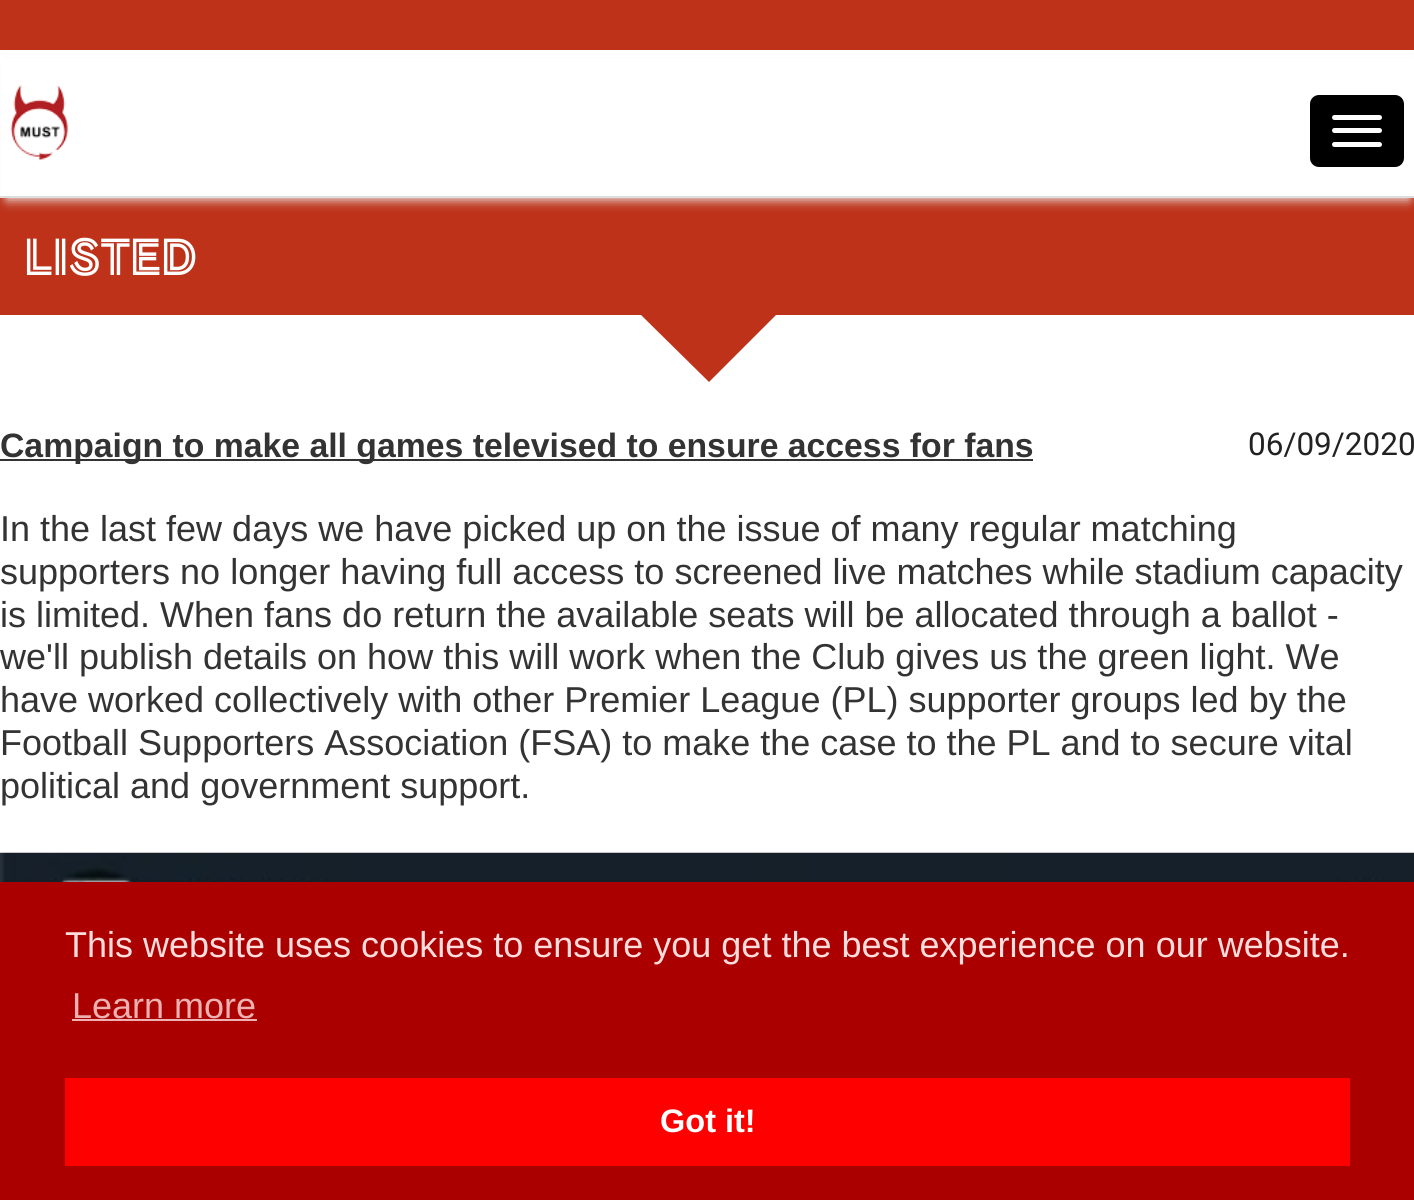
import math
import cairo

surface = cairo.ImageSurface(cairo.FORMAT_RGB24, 1414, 1200)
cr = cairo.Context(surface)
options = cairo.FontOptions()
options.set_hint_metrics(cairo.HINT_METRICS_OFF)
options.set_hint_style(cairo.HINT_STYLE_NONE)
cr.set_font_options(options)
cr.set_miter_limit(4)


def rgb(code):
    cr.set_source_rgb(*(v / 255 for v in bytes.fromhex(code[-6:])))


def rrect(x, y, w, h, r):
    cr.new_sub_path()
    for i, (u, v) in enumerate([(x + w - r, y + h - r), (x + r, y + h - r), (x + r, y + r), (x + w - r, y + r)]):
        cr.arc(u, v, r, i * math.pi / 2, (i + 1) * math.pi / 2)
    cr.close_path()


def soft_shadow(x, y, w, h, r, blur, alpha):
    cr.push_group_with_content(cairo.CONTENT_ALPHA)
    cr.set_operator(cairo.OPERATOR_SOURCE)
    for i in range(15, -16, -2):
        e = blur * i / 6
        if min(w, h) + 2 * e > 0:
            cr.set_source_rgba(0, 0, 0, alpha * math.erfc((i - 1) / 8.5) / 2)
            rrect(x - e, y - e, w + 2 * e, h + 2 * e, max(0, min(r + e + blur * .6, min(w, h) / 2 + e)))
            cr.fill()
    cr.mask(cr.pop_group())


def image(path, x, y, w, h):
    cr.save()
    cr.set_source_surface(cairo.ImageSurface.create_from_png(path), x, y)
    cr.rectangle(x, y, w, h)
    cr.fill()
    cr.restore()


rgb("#ffffff")
cr.paint()
rgb("#bd3219")
cr.rectangle(0, 0, 1414, 50)
cr.fill()
cr.rectangle(0, 198, 1414, 117)
cr.fill()
rgb("#ececec")
soft_shadow(7, 65, 1402, 135, 0, 5.5, 1)
rgb("#ffffff")
cr.rectangle(1, 59, 1413, 137)
cr.fill()
rgb("#dddddd")
cr.rectangle(0, 196, 1414, 2)
cr.fill()
image("img/1.png", 10, 84, 59, 77)
rgb("#000000")
rrect(1310, 95, 94, 72, 9)
cr.fill()
rgb("#ffffff")
rrect(1332, 115, 50, 5, 2.5)
cr.fill()
rrect(1332, 128, 50, 5, 2.5)
cr.fill()
rrect(1332, 142, 50, 5, 2.5)
cr.fill()
rgb("#bd3219")
cr.new_path()
cr.move_to(641, 315)
cr.line_to(776, 315)
cr.line_to(709, 382)
cr.close_path()
cr.fill()
rgb("#333333")
cr.rectangle(0, 459, 1033, 2)
cr.fill()
image("img/2.png", 0, 852, 1414, 30)
for x, y, w, h, color in [
    (0, 882, 1414, 318, "#aa0000"),
    (72, 1019, 185, 2, "#eeb1b1"),
    (65, 1078, 1285, 88, "#ff0000"),
]:
    rgb(color)
    cr.rectangle(x, y, w, h)
    cr.fill()
cr.select_font_face("Train One", cairo.FONT_SLANT_NORMAL, cairo.FONT_WEIGHT_BOLD)
cr.set_font_size(45)
rgb("#ffffff")
cr.move_to(23, 275)
cr.show_text("LISTED")
cr.select_font_face("Liberation Sans", cairo.FONT_SLANT_NORMAL, cairo.FONT_WEIGHT_BOLD)
cr.set_font_size(33.75)
rgb("#333333")
cr.move_to(0, 457)
cr.show_text("Campaign to make all games televised to ensure access for fans")
cr.select_font_face("Roboto")
cr.set_font_size(31.5)
rgb("#222222")
cr.move_to(1248, 455)
cr.show_text("06/09/2020")
cr.select_font_face("Liberation Sans")
cr.set_font_size(36)
rgb("#333333")
for x, y, s in [
    (0, 541, "In the last few days we have picked up on the issue of many regular matching"),
    (0, 584, "supporters no longer having full access to screened live matches while stadium capacity"),
    (0, 627, "is limited. When fans do return the available seats will be allocated through a ballot -"),
    (0, 669, "we'll publish details on how this will work when the Club gives us the green light. We"),
    (0, 712, "have worked collectively with other Premier League (PL) supporter groups led by the"),
    (0, 755, "Football Supporters Association (FSA) to make the case to the PL and to secure vital"),
    (0, 798, "political and government support."),
]:
    cr.move_to(x, y)
    cr.show_text(s)
rgb("#ffdddd")
cr.move_to(65, 957)
cr.show_text("This website uses cookies to ensure you get the best experience on our website.")
rgb("#eeb1b1")
cr.move_to(72, 1018)
cr.show_text("Learn more")
cr.select_font_face("Liberation Sans", cairo.FONT_SLANT_NORMAL, cairo.FONT_WEIGHT_BOLD)
cr.set_font_size(32.5)
rgb("#ffffff")
cr.move_to(660, 1132)
cr.show_text("Got it!")
surface.write_to_png("page.png")
